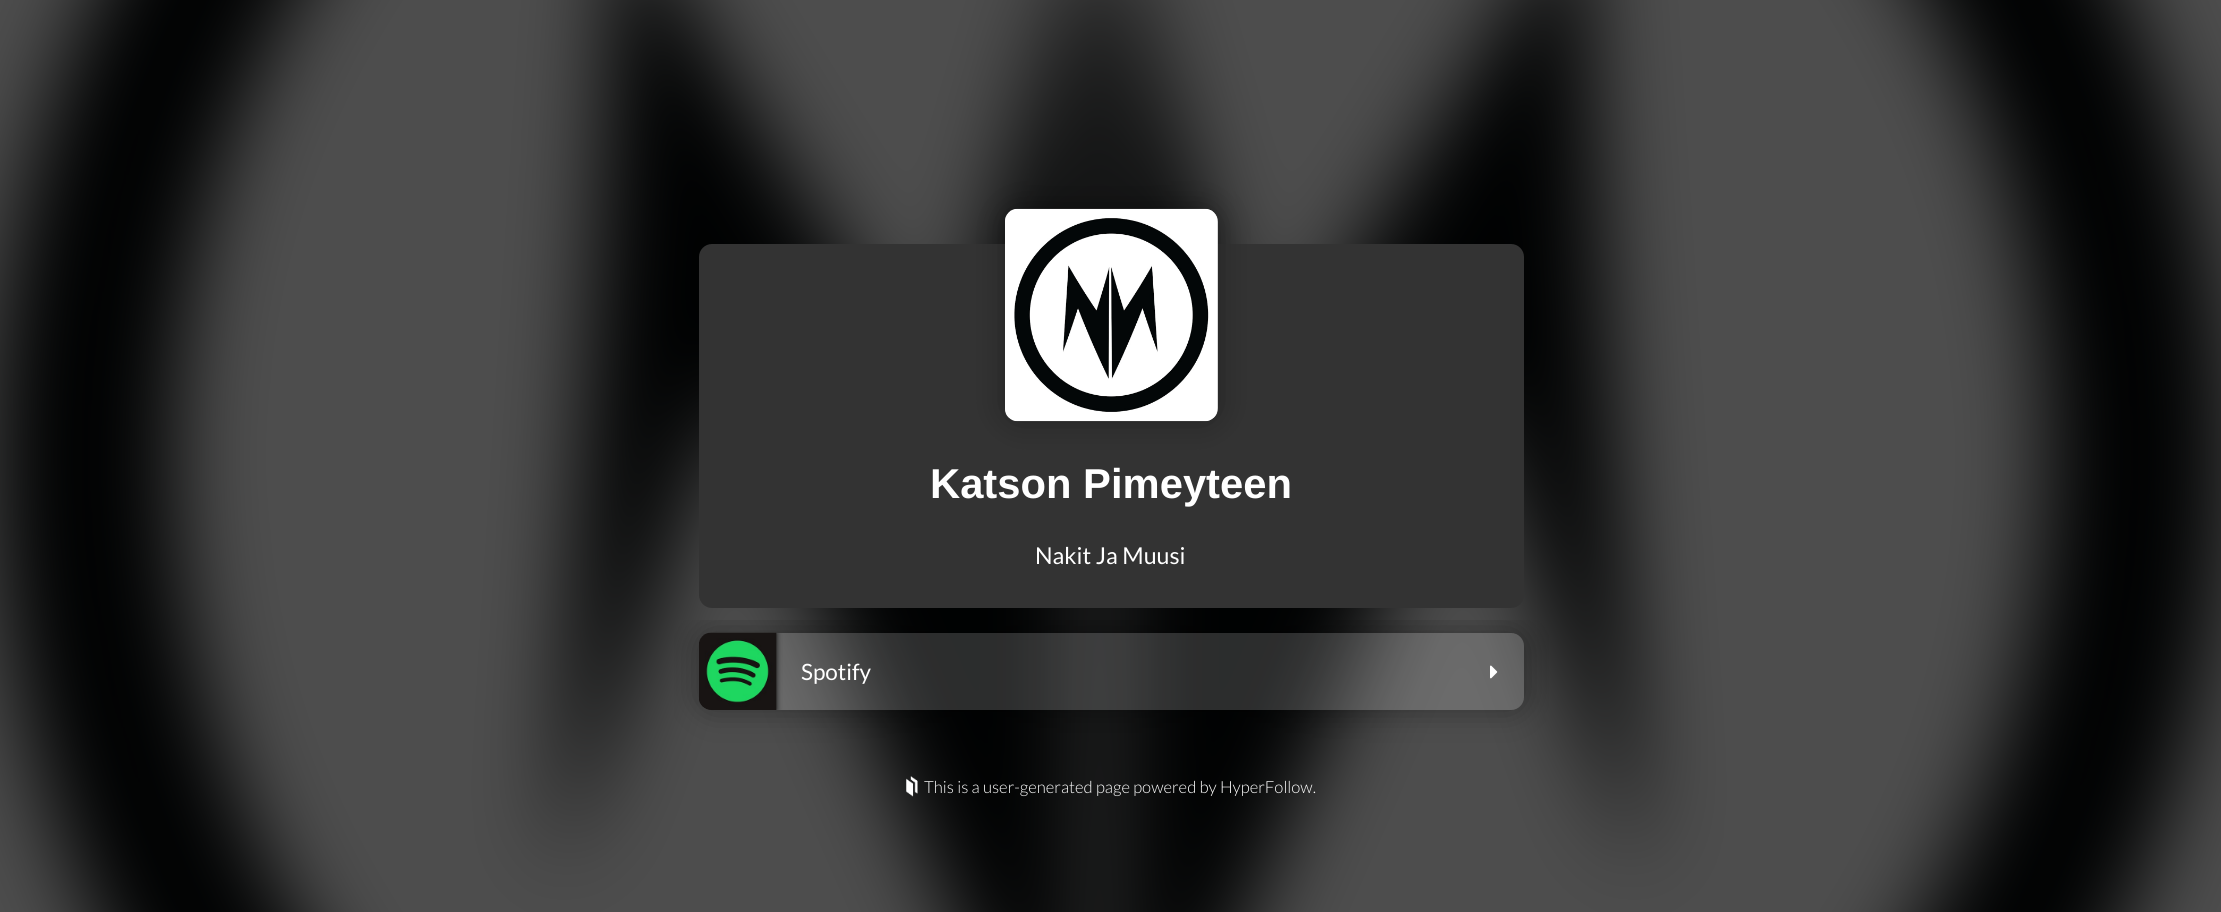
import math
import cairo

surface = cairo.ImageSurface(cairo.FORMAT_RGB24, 2221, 912)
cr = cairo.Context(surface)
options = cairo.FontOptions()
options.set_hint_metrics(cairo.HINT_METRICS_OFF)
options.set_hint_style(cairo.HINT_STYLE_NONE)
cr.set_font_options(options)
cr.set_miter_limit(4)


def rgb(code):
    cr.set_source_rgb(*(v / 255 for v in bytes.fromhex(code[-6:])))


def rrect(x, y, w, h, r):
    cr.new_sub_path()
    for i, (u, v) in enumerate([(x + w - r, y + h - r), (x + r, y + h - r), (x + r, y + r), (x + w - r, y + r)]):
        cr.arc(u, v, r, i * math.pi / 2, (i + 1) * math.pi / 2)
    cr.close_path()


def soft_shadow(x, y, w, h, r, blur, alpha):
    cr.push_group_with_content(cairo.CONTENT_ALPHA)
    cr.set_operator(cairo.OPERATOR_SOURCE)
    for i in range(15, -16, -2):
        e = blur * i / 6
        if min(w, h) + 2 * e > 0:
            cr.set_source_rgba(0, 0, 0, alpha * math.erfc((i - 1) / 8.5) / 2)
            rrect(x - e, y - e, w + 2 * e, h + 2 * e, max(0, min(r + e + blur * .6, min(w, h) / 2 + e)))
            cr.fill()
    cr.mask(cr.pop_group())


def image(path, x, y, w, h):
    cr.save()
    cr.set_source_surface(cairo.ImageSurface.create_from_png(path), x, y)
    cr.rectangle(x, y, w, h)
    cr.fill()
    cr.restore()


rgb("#000000")
cr.paint()
image("img/1.png", 0, 0, 2221, 912)
cr.save()
cr.rectangle(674, 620, 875, 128)
cr.clip()
cr.set_fill_rule(cairo.FILL_RULE_EVEN_ODD)
cr.new_path()
cr.move_to(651, 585)
cr.line_to(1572, 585)
cr.line_to(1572, 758)
cr.line_to(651, 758)
cr.close_path()
cr.move_to(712, 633)
cr.line_to(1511, 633)
cr.curve_to(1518, 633, 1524, 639, 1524, 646)
cr.line_to(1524, 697)
cr.curve_to(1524, 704, 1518, 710, 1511, 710)
cr.line_to(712, 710)
cr.curve_to(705, 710, 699, 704, 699, 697)
cr.line_to(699, 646)
cr.curve_to(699, 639, 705, 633, 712, 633)
cr.close_path()
cr.clip()
soft_shadow(699, 633, 825, 77, 13, 15.5, 0.35)
cr.restore()
rgb("#333333")
rrect(699, 244, 825, 364, 13)
cr.fill()
rgb("#000000")
soft_shadow(1005, 209, 213, 212, 13, 15.5, 0.35)
rgb("#cccccc")
rrect(1005, 209, 213, 212, 13)
cr.fill()
image("img/2.png", 1005, 208, 213, 214)
cr.set_source_rgba(1, 1, 1, 0.17)
rrect(699, 633, 825, 77, 13)
cr.fill()
cr.save()
rrect(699, 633, 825, 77, 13)
cr.clip()
rgb("#000000")
soft_shadow(699, 633, 77, 77, 0, 3, 1)
cr.restore()
image("img/3.png", 699, 632, 78, 78)
image("img/4.png", 1490, 665, 8, 14)
image("img/5.png", 906, 776, 12, 21)
cr.select_font_face("Liberation Sans", cairo.FONT_SLANT_NORMAL, cairo.FONT_WEIGHT_BOLD)
cr.set_font_size(41.75)
rgb("#ffffff")
cr.move_to(930, 498)
cr.show_text("Katson Pimeyteen")
cr.select_font_face("Lato")
cr.set_font_size(23.25)
cr.move_to(1035, 564)
cr.show_text("Nakit Ja Muusi")
cr.set_font_size(22.5)
cr.move_to(801, 680)
cr.show_text("Spotify")
cr.select_font_face("Lato Light")
cr.set_font_size(16.7)
cr.move_to(924, 793)
cr.show_text("This is a user-generated page powered by HyperFollow.")
surface.write_to_png("page.png")
